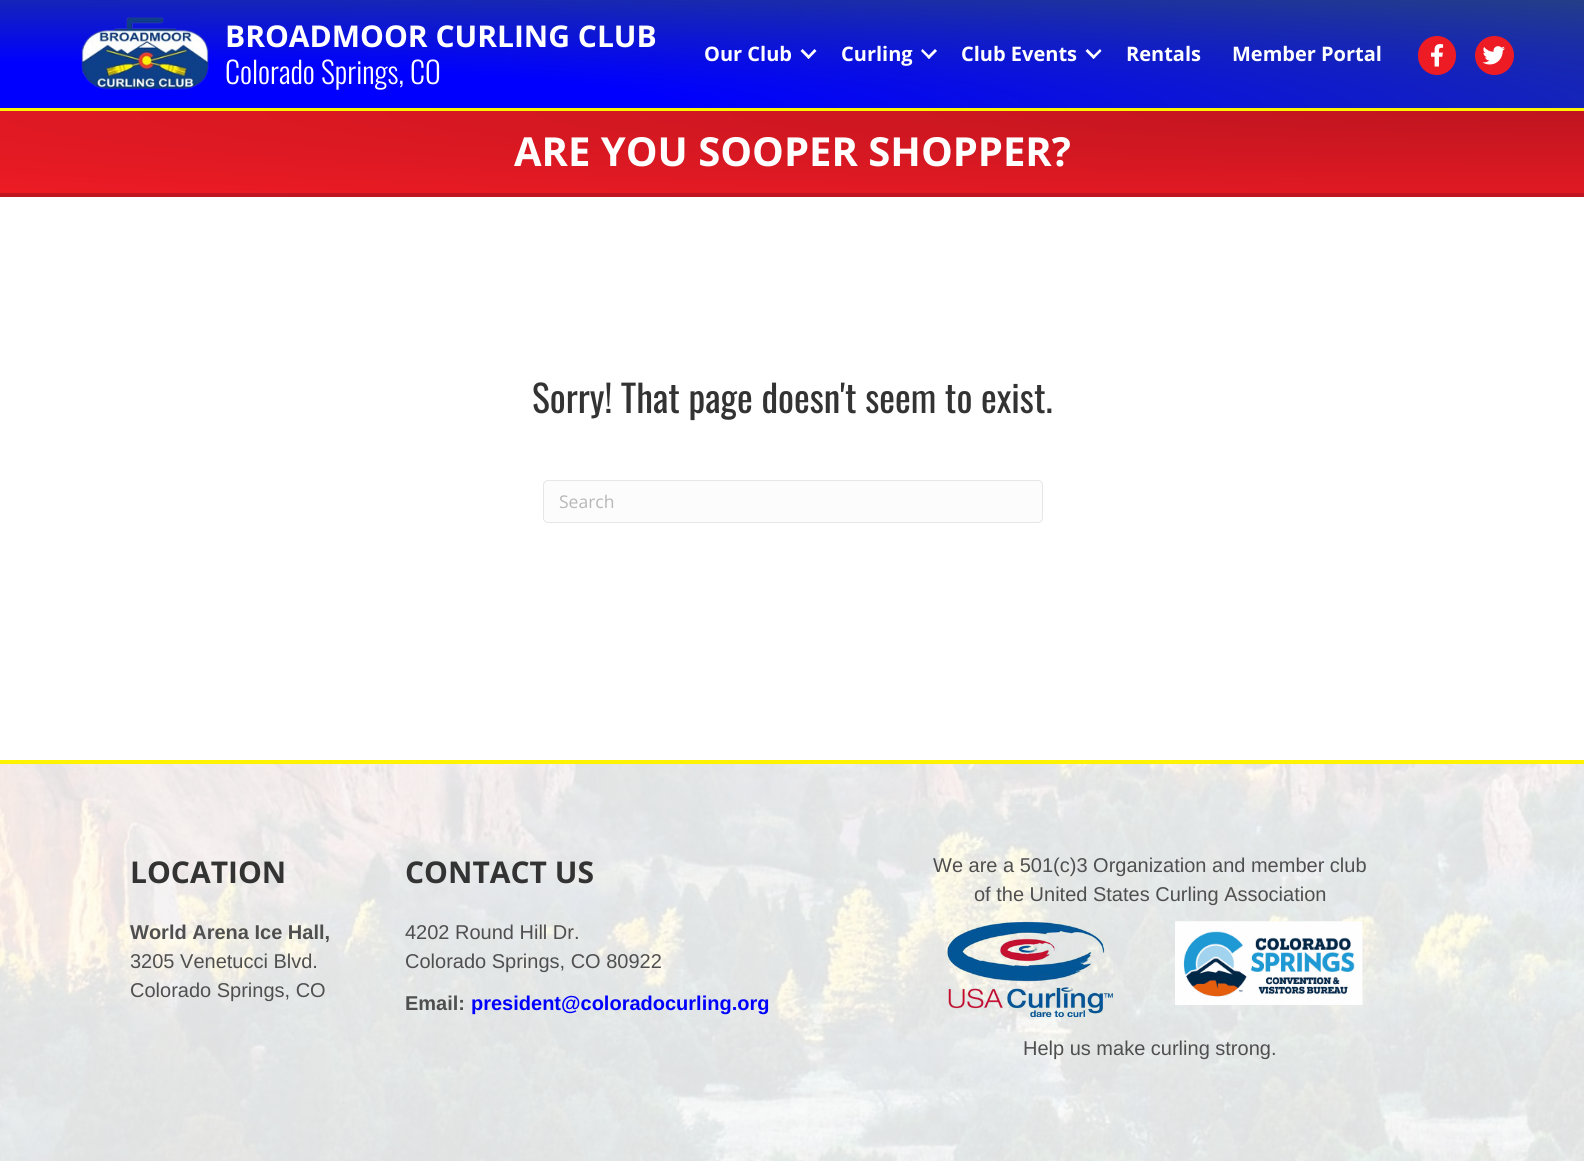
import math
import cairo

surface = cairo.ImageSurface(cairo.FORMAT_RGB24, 1584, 1161)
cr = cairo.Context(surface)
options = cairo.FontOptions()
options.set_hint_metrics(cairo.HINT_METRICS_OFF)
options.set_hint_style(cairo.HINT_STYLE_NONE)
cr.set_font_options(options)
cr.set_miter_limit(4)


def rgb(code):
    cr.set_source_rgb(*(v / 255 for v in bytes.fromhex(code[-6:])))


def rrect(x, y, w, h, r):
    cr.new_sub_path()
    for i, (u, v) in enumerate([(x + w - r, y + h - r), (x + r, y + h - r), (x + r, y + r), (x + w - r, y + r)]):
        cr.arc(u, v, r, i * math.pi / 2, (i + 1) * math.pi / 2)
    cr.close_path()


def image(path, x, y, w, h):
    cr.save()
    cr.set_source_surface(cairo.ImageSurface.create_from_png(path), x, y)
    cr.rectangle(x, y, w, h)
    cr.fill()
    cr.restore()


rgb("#ffffff")
cr.paint()
gradient = cairo.RadialGradient(0, 0, 0, 0, 0, 1)
gradient.set_matrix(cairo.Matrix(1 / 2242, 0, 0, 1 / 152, -1 * 0 / 2242, -1 * 108 / 152))
gradient.add_color_stop_rgba(0.3, 0, 0, 0.996, 1)
gradient.add_color_stop_rgba(1, 0.141, 0.243, 0.529, 1)
cr.set_source(gradient)
cr.rectangle(0, 0, 1584, 108)
cr.fill()
rgb("#fff300")
cr.rectangle(0, 108, 1584, 3)
cr.fill()
image("img/1.png", 81, 17, 128, 73)
rgb("#ffffff")
cr.new_path()
cr.move_to(814.5, 49)
cr.line_to(816.5, 51)
cr.line_to(808.5, 59)
cr.line_to(807, 57)
cr.close_path()
cr.fill()
cr.new_path()
cr.move_to(802.5, 49)
cr.line_to(810.5, 57)
cr.line_to(808.5, 59)
cr.line_to(800.5, 51)
cr.close_path()
cr.fill()
cr.new_path()
cr.move_to(935, 49)
cr.line_to(937, 51)
cr.line_to(929, 59)
cr.line_to(927, 57)
cr.close_path()
cr.fill()
cr.new_path()
cr.move_to(922.5, 49)
cr.line_to(930.5, 57)
cr.line_to(929, 59)
cr.line_to(921, 51)
cr.close_path()
cr.fill()
cr.new_path()
cr.move_to(1100, 49)
cr.line_to(1101.5, 51)
cr.line_to(1093.5, 59)
cr.line_to(1092, 57)
cr.close_path()
cr.fill()
cr.new_path()
cr.move_to(1087.5, 49)
cr.line_to(1095.5, 57)
cr.line_to(1093.5, 59)
cr.line_to(1085.5, 51)
cr.close_path()
cr.fill()
rgb("#ed1b24")
rrect(1418, 36, 38, 39, 19)
cr.fill()
image("img/2.png", 1431, 44, 13, 23)
cr.arc(1494.5, 55.5, 19.5, 0, 2 * math.pi)
cr.fill()
image("img/3.png", 1482, 46, 23, 19)
gradient = cairo.RadialGradient(0, 0, 0, 0, 0, 1)
gradient.set_matrix(cairo.Matrix(1 / 2242, 0, 0, 1 / 115, -1 * 1585 / 2242, -1 * 111 / 115))
gradient.add_color_stop_rgba(0, 0.749, 0.082, 0.125, 1)
gradient.add_color_stop_rgba(1, 0.929, 0.106, 0.141, 1)
cr.set_source(gradient)
cr.rectangle(0, 111, 1584, 82)
cr.fill()
rgb("#bf1520")
cr.rectangle(0, 193, 1584, 4)
cr.fill()
rgb("#fcfcfc")
rrect(543.5, 480.5, 499, 42, 4.5)
cr.fill_preserve()
rgb("#e6e6e6")
cr.set_line_width(1)
cr.stroke()
image("img/4.png", 0, 764, 1584, 397)
rgb("#fff300")
cr.rectangle(0, 760, 1584, 4)
cr.fill()
image("img/5.png", 946, 921, 168, 100)
image("img/6.png", 1175, 921, 188, 84)
cr.select_font_face("Open Sans", cairo.FONT_SLANT_NORMAL, cairo.FONT_WEIGHT_BOLD)
cr.set_font_size(30)
rgb("#ffffff")
cr.move_to(225, 47)
cr.show_text("BROADMOOR CURLING CLUB")
cr.select_font_face("Oswald Light")
cr.move_to(225, 84)
cr.show_text("Colorado Springs, CO")
cr.select_font_face("Open Sans", cairo.FONT_SLANT_NORMAL, cairo.FONT_WEIGHT_BOLD)
cr.set_font_size(20)
for x, y, s in [
    (704, 61, "Our Club"),
    (841, 61, "Curling"),
    (961, 61, "Club Events"),
    (1126, 61, "Rentals"),
    (1232, 61, "Member Portal"),
]:
    cr.move_to(x, y)
    cr.show_text(s)
cr.set_font_size(40)
cr.move_to(514, 166)
cr.show_text("ARE YOU SOOPER SHOPPER?")
cr.select_font_face("Oswald")
cr.set_font_size(37.5)
rgb("#333333")
cr.move_to(532, 413)
cr.show_text("Sorry! That page doesn't seem to exist.")
cr.select_font_face("Open Sans")
cr.set_font_size(17.5)
rgb("#b7b7b7")
cr.move_to(559, 508)
cr.show_text("Search")
cr.select_font_face("Open Sans", cairo.FONT_SLANT_NORMAL, cairo.FONT_WEIGHT_BOLD)
cr.set_font_size(30)
rgb("#333333")
cr.move_to(130, 883)
cr.show_text("LOCATION")
cr.select_font_face("Liberation Sans", cairo.FONT_SLANT_NORMAL, cairo.FONT_WEIGHT_BOLD)
cr.set_font_size(20)
rgb("#4f4f4f")
cr.move_to(130, 939)
cr.show_text("World Arena Ice Hall,")
cr.select_font_face("Liberation Sans")
cr.move_to(130, 968)
cr.show_text("3205 Venetucci Blvd.")
cr.move_to(130, 997)
cr.show_text("Colorado Springs, CO")
cr.select_font_face("Open Sans", cairo.FONT_SLANT_NORMAL, cairo.FONT_WEIGHT_BOLD)
cr.set_font_size(30)
rgb("#333333")
cr.move_to(405, 883)
cr.show_text("CONTACT US")
cr.select_font_face("Liberation Sans")
cr.set_font_size(20)
rgb("#4f4f4f")
cr.move_to(405, 939)
cr.show_text("4202 Round Hill Dr.")
cr.move_to(405, 968)
cr.show_text("Colorado Springs, CO 80922")
cr.select_font_face("Liberation Sans", cairo.FONT_SLANT_NORMAL, cairo.FONT_WEIGHT_BOLD)
cr.move_to(405, 1010)
cr.show_text("Email:")
rgb("#0000fe")
cr.move_to(471, 1010)
cr.show_text("president@coloradocurling.org")
cr.select_font_face("Liberation Sans")
rgb("#4f4f4f")
for x, y, s in [
    (933, 872, "We are a 501(c)3 Organization and member club"),
    (974, 901, "of the United States Curling Association"),
    (1023, 1055, "Help us make curling strong."),
]:
    cr.move_to(x, y)
    cr.show_text(s)
surface.write_to_png("page.png")
